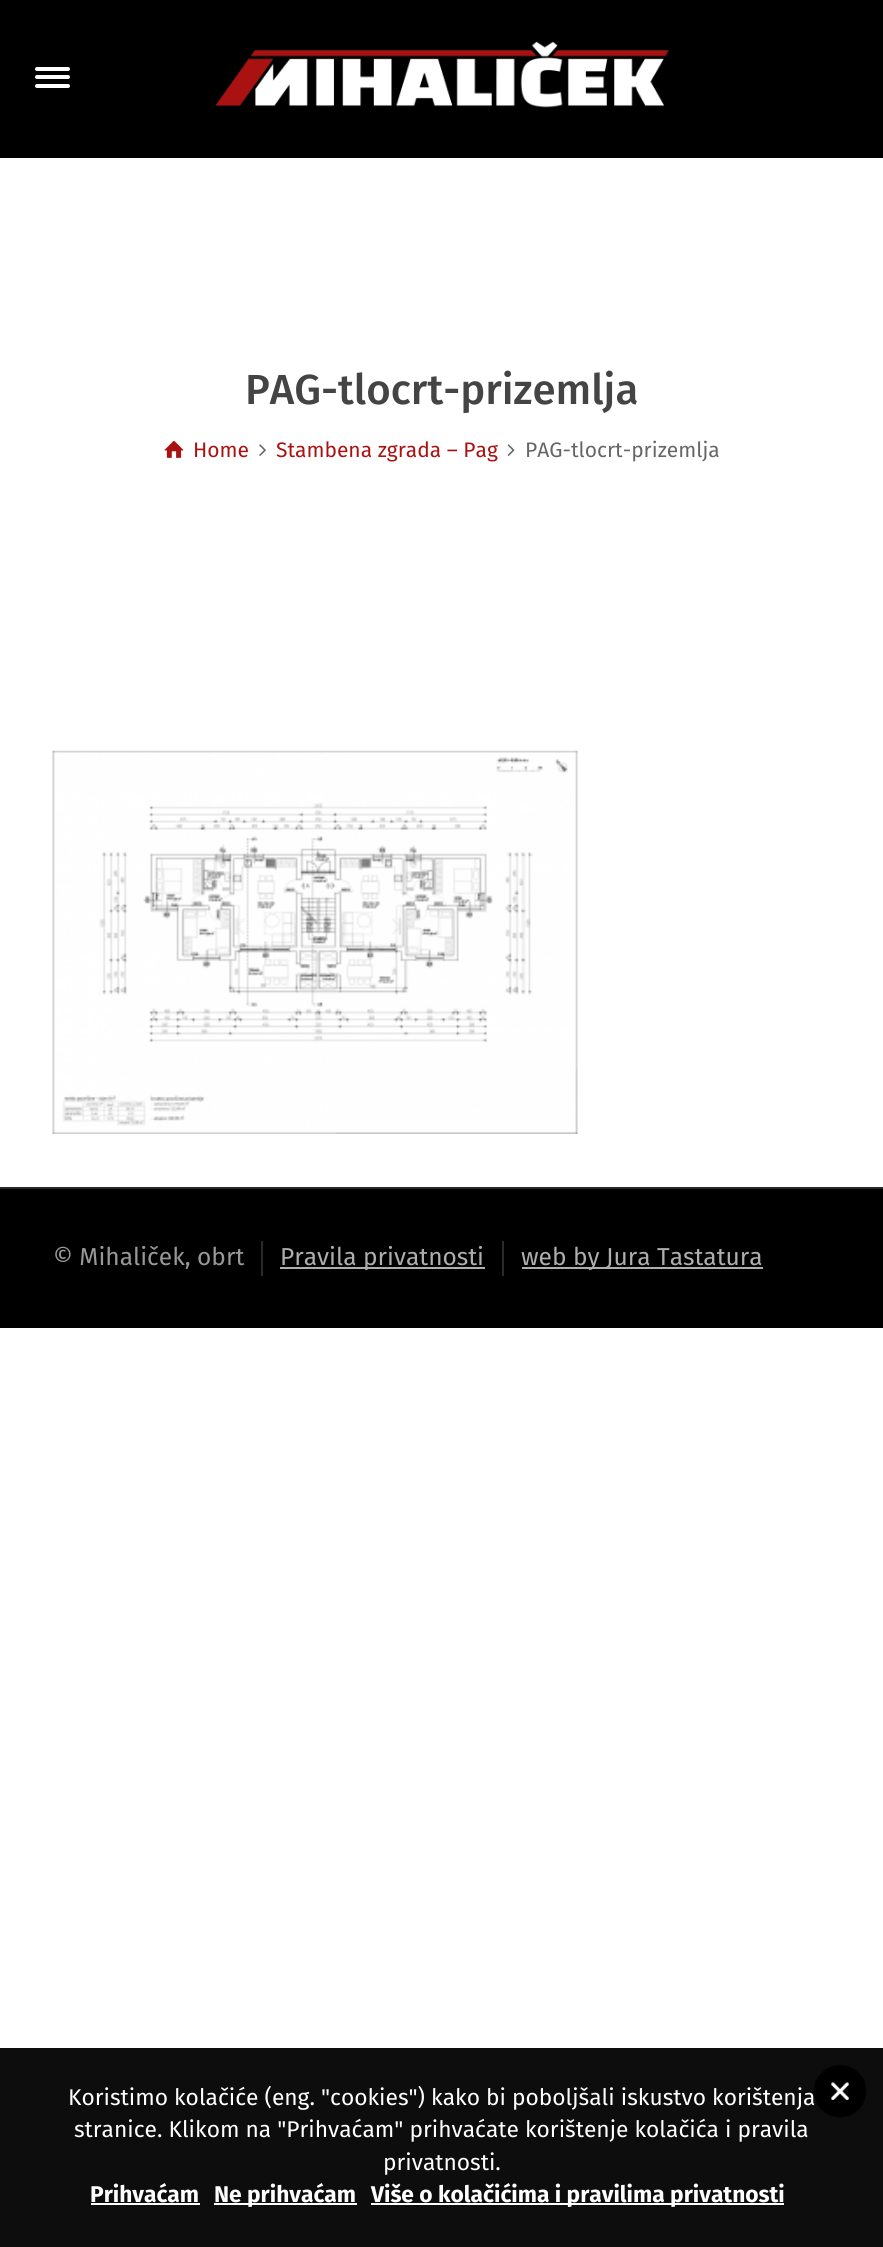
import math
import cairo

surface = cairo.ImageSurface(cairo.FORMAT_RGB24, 883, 2247)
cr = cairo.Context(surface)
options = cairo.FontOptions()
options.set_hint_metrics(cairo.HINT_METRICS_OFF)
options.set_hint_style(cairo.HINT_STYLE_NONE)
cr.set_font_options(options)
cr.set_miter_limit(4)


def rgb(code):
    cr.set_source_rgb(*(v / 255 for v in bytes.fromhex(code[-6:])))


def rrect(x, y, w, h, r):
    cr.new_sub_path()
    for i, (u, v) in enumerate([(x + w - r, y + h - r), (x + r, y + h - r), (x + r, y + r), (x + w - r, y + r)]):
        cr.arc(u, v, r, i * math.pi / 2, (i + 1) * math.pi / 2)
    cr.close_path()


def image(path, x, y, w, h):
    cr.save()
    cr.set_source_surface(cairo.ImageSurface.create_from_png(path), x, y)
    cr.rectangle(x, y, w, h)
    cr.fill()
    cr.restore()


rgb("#ffffff")
cr.paint()
rgb("#000000")
cr.rectangle(0, 0, 883, 158)
cr.fill()
rgb("#ffffff")
rrect(35, 67, 35, 4, 2)
cr.fill()
rrect(35, 75, 35, 4, 2)
cr.fill()
rrect(35, 84, 35, 4, 2)
cr.fill()
image("img/1.png", 215, 41, 454, 67)
image("img/2.png", 164, 440, 20, 18)
image("img/3.png", 259, 444, 7, 12)
image("img/4.png", 507, 444, 8, 12)
image("img/5.png", 52, 750, 526, 384)
for x, y, w, h, color in [
    (0, 1189, 883, 139, "#000000"),
    (0, 1187, 883, 2, "#2a2a2a"),
    (261, 1241, 2, 35, "#2a2a2a"),
    (280, 1267, 205, 2, "#aeaeae"),
    (502, 1241, 2, 35, "#2a2a2a"),
    (522, 1267, 241, 2, "#aeaeae"),
    (0, 2048, 883, 199, "#0d0d0d"),
    (91, 2203, 109, 2, "#ffffff"),
    (214, 2203, 143, 2, "#ffffff"),
    (371, 2203, 413, 2, "#ffffff"),
]:
    rgb(color)
    cr.rectangle(x, y, w, h)
    cr.fill()
cr.select_font_face("Fira Sans Medium")
cr.set_font_size(42)
rgb("#444444")
cr.move_to(245, 404)
cr.show_text("PAG-tlocrt-prizemlja")
cr.select_font_face("Fira Sans")
cr.set_font_size(21)
rgb("#aa1211")
cr.move_to(193, 457)
cr.show_text("Home")
cr.move_to(276, 457)
cr.show_text("Stambena zgrada – Pag")
rgb("#666666")
cr.move_to(525, 457)
cr.show_text("PAG-tlocrt-prizemlja")
cr.set_font_size(24.5)
rgb("#989898")
cr.move_to(53, 1265)
cr.show_text("© Mihaliček, obrt")
rgb("#aeaeae")
cr.move_to(280, 1265)
cr.show_text("Pravila privatnosti")
cr.move_to(521, 1265)
cr.show_text("web by Jura Tastatura")
cr.set_font_size(22.75)
rgb("#ffffff")
for x, y, s in [
    (68, 2105, "Koristimo kolačiće (eng. \"cookies\") kako bi poboljšali iskustvo korištenja"),
    (74, 2137, "stranice. Klikom na \"Prihvaćam\" prihvaćate korištenje kolačića i pravila"),
    (383, 2170, "privatnosti."),
]:
    cr.move_to(x, y)
    cr.show_text(s)
image("img/6.png", 813, 2065, 53, 53)
cr.select_font_face("Fira Sans", cairo.FONT_SLANT_NORMAL, cairo.FONT_WEIGHT_BOLD)
for x, y, s in [
    (90, 2202, "Prihvaćam"),
    (214, 2202, "Ne prihvaćam"),
    (371, 2202, "Više o kolačićima i pravilima privatnosti"),
]:
    cr.move_to(x, y)
    cr.show_text(s)
surface.write_to_png("page.png")
